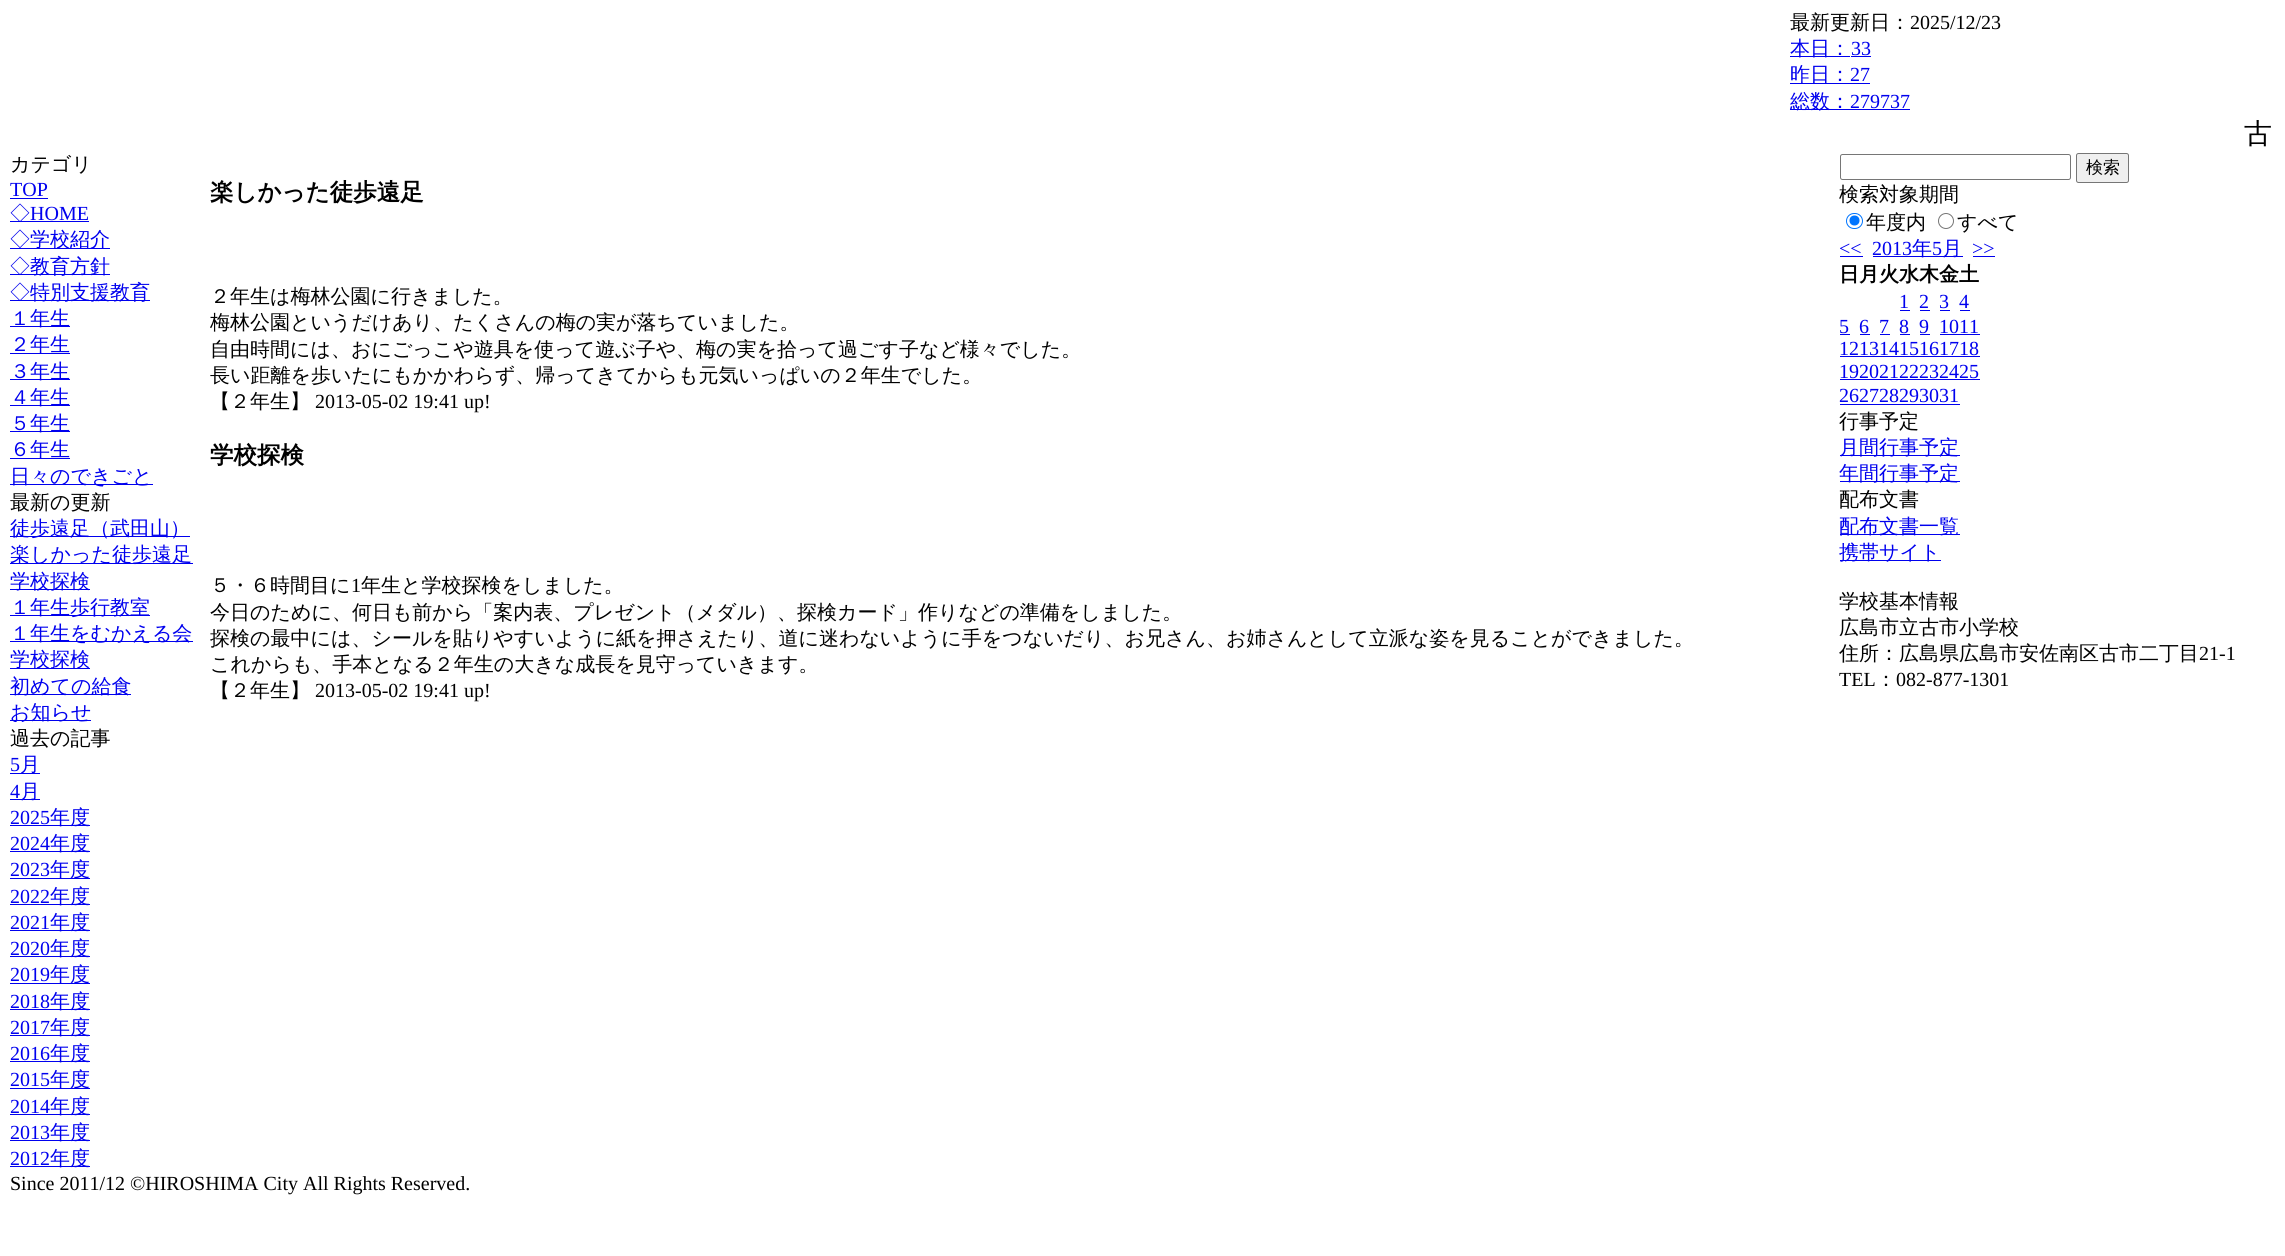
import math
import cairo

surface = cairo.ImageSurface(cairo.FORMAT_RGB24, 2285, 1256)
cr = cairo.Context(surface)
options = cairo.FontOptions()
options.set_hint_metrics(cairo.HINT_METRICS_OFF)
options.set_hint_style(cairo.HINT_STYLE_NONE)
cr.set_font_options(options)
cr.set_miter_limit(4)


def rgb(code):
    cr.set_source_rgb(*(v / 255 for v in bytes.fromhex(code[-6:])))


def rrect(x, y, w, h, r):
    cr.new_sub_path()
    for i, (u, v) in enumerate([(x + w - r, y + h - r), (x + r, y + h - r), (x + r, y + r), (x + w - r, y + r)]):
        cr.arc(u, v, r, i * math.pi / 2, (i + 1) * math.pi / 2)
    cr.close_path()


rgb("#ffffff")
cr.paint()
for x, y, w, h, color in [
    (1790, 56, 60, 1, "#0000ee"),
    (1851, 56, 20, 1, "#0000ee"),
    (1790, 83, 80, 1, "#0000ee"),
    (1790, 109, 120, 1, "#0000ee"),
    (10, 198, 38, 1, "#0000ee"),
    (10, 221, 79, 1, "#0000ee"),
    (10, 248, 100, 1, "#0000ee"),
    (10, 274, 100, 1, "#0000ee"),
    (10, 300, 140, 1, "#0000ee"),
    (10, 326, 60, 1, "#0000ee"),
    (10, 353, 60, 1, "#0000ee"),
    (10, 379, 60, 1, "#0000ee"),
    (10, 405, 60, 1, "#0000ee"),
    (10, 431, 60, 1, "#0000ee"),
    (10, 458, 60, 1, "#0000ee"),
    (10, 484, 143, 1, "#0000ee"),
    (10, 536, 180, 1, "#0000ee"),
    (10, 563, 183, 1, "#0000ee"),
    (10, 589, 80, 1, "#0000ee"),
    (10, 615, 140, 1, "#0000ee"),
    (10, 641, 183, 1, "#0000ee"),
    (10, 668, 80, 1, "#0000ee"),
    (10, 694, 121, 1, "#0000ee"),
    (10, 720, 81, 1, "#0000ee"),
    (10, 773, 30, 1, "#0000ee"),
    (10, 799, 30, 1, "#0000ee"),
    (10, 825, 80, 1, "#0000ee"),
    (10, 851, 80, 1, "#0000ee"),
    (10, 878, 80, 1, "#0000ee"),
    (10, 904, 80, 1, "#0000ee"),
    (10, 930, 80, 1, "#0000ee"),
    (10, 956, 80, 1, "#0000ee"),
    (10, 983, 80, 1, "#0000ee"),
    (10, 1009, 80, 1, "#0000ee"),
    (10, 1035, 80, 1, "#0000ee"),
    (10, 1061, 80, 1, "#0000ee"),
    (10, 1088, 80, 1, "#0000ee"),
    (10, 1114, 80, 1, "#0000ee"),
    (10, 1140, 80, 1, "#0000ee"),
    (10, 1166, 80, 1, "#0000ee"),
]:
    rgb(color)
    cr.rectangle(x, y, w, h)
    cr.fill()
rrect(1840.5, 154.5, 230, 25, 2)
rgb("#767676")
cr.set_line_width(1)
cr.stroke()
rgb("#efefef")
rrect(2076.5, 153.5, 52, 29, 2)
cr.fill_preserve()
rgb("#767676")
cr.stroke()
rrect(1846.5, 213.5, 16, 15, 7.5)
rgb("#0075ff")
cr.stroke()
cr.arc(1854.5, 220.5, 5, 0, 2 * math.pi)
cr.fill()
cr.arc(1946, 221, 7.5, 0, 2 * math.pi)
rgb("#767676")
cr.stroke()
for x, y, w, h, color in [
    (1840, 256, 23, 1, "#0000ee"),
    (1873, 256, 90, 1, "#0000ee"),
    (1973, 256, 22, 1, "#0000ee"),
    (1900, 310, 10, 1, "#0000ee"),
    (1920, 310, 10, 1, "#0000ee"),
    (1940, 310, 10, 1, "#0000ee"),
    (1960, 310, 10, 1, "#0000ee"),
    (1840, 334, 10, 1, "#0000ee"),
    (1860, 334, 10, 1, "#0000ee"),
    (1880, 334, 10, 1, "#0000ee"),
    (1900, 334, 10, 1, "#0000ee"),
    (1920, 334, 10, 1, "#0000ee"),
    (1940, 334, 40, 1, "#0000ee"),
    (1840, 356, 140, 1, "#0000ee"),
    (1840, 379, 140, 1, "#0000ee"),
    (1840, 404, 120, 1, "#0000ee"),
    (1840, 455, 120, 1, "#0000ee"),
    (1840, 481, 120, 1, "#0000ee"),
    (1840, 534, 120, 1, "#0000ee"),
    (1840, 560, 101, 1, "#0000ee"),
]:
    rgb(color)
    cr.rectangle(x, y, w, h)
    cr.fill()
cr.select_font_face("WenQuanYi Zen Hei Medium")
cr.set_font_size(20)
rgb("#000000")
cr.move_to(1790, 29)
cr.show_text("最新更新日：")
cr.select_font_face("Liberation Serif")
cr.move_to(1910, 29)
cr.show_text("2025/12/23")
cr.select_font_face("WenQuanYi Zen Hei Medium")
rgb("#0000ee")
cr.move_to(1790, 55)
cr.show_text("本日：")
cr.select_font_face("Liberation Serif")
cr.move_to(1851, 55)
cr.show_text("33")
cr.select_font_face("WenQuanYi Zen Hei Medium")
cr.move_to(1790, 81)
cr.show_text("昨日：")
cr.select_font_face("Liberation Serif")
cr.move_to(1850, 81)
cr.show_text("27")
cr.select_font_face("WenQuanYi Zen Hei Medium")
cr.move_to(1790, 108)
cr.show_text("総数：")
cr.select_font_face("Liberation Serif")
cr.move_to(1850, 108)
cr.show_text("279737")
cr.select_font_face("WenQuanYi Zen Hei Medium")
cr.set_font_size(28)
rgb("#000000")
cr.move_to(2244, 143)
cr.show_text("古")
cr.set_font_size(20)
cr.move_to(10, 171)
cr.show_text("カテゴリ")
cr.select_font_face("Liberation Serif")
rgb("#0000ee")
cr.move_to(10, 196)
cr.show_text("TOP")
cr.select_font_face("WenQuanYi Zen Hei Medium")
cr.move_to(10, 220)
cr.show_text("◇")
cr.select_font_face("Liberation Serif")
cr.move_to(30, 220)
cr.show_text("HOME")
cr.select_font_face("WenQuanYi Zen Hei Medium")
for x, y, s in [
    (10, 246, "◇学校紹介"),
    (10, 273, "◇教育方針"),
    (10, 299, "◇特別支援教育"),
    (10, 325, "１年生"),
    (10, 351, "２年生"),
    (10, 378, "３年生"),
    (10, 404, "４年生"),
    (10, 430, "５年生"),
    (10, 456, "６年生"),
    (10, 483, "日々のできごと"),
]:
    cr.move_to(x, y)
    cr.show_text(s)
rgb("#000000")
cr.move_to(10, 509)
cr.show_text("最新の更新")
rgb("#0000ee")
for x, y, s in [
    (10, 535, "徒歩遠足（武田山）"),
    (10, 561, "楽しかった徒歩遠足"),
    (10, 588, "学校探検"),
    (10, 614, "１年生歩行教室"),
    (10, 640, "１年生をむかえる会"),
    (10, 666, "学校探検"),
    (10, 693, "初めての給食"),
    (10, 719, "お知らせ"),
]:
    cr.move_to(x, y)
    cr.show_text(s)
rgb("#000000")
cr.move_to(10, 745)
cr.show_text("過去の記事")
cr.select_font_face("Liberation Serif")
rgb("#0000ee")
cr.move_to(10, 771)
cr.show_text("5")
cr.select_font_face("WenQuanYi Zen Hei Medium")
cr.move_to(20, 771)
cr.show_text("月")
cr.select_font_face("Liberation Serif")
cr.move_to(10, 798)
cr.show_text("4")
cr.select_font_face("WenQuanYi Zen Hei Medium")
cr.move_to(20, 798)
cr.show_text("月")
cr.select_font_face("Liberation Serif")
cr.move_to(10, 824)
cr.show_text("2025")
cr.select_font_face("WenQuanYi Zen Hei Medium")
cr.move_to(50, 824)
cr.show_text("年度")
cr.select_font_face("Liberation Serif")
cr.move_to(10, 850)
cr.show_text("2024")
cr.select_font_face("WenQuanYi Zen Hei Medium")
cr.move_to(50, 850)
cr.show_text("年度")
cr.select_font_face("Liberation Serif")
cr.move_to(10, 876)
cr.show_text("2023")
cr.select_font_face("WenQuanYi Zen Hei Medium")
cr.move_to(50, 876)
cr.show_text("年度")
cr.select_font_face("Liberation Serif")
cr.move_to(10, 903)
cr.show_text("2022")
cr.select_font_face("WenQuanYi Zen Hei Medium")
cr.move_to(50, 903)
cr.show_text("年度")
cr.select_font_face("Liberation Serif")
cr.move_to(10, 929)
cr.show_text("2021")
cr.select_font_face("WenQuanYi Zen Hei Medium")
cr.move_to(50, 929)
cr.show_text("年度")
cr.select_font_face("Liberation Serif")
cr.move_to(10, 955)
cr.show_text("2020")
cr.select_font_face("WenQuanYi Zen Hei Medium")
cr.move_to(50, 955)
cr.show_text("年度")
cr.select_font_face("Liberation Serif")
cr.move_to(10, 981)
cr.show_text("2019")
cr.select_font_face("WenQuanYi Zen Hei Medium")
cr.move_to(50, 981)
cr.show_text("年度")
cr.select_font_face("Liberation Serif")
cr.move_to(10, 1008)
cr.show_text("2018")
cr.select_font_face("WenQuanYi Zen Hei Medium")
cr.move_to(50, 1008)
cr.show_text("年度")
cr.select_font_face("Liberation Serif")
cr.move_to(10, 1034)
cr.show_text("2017")
cr.select_font_face("WenQuanYi Zen Hei Medium")
cr.move_to(50, 1034)
cr.show_text("年度")
cr.select_font_face("Liberation Serif")
cr.move_to(10, 1060)
cr.show_text("2016")
cr.select_font_face("WenQuanYi Zen Hei Medium")
cr.move_to(50, 1060)
cr.show_text("年度")
cr.select_font_face("Liberation Serif")
cr.move_to(10, 1086)
cr.show_text("2015")
cr.select_font_face("WenQuanYi Zen Hei Medium")
cr.move_to(50, 1086)
cr.show_text("年度")
cr.select_font_face("Liberation Serif")
cr.move_to(10, 1113)
cr.show_text("2014")
cr.select_font_face("WenQuanYi Zen Hei Medium")
cr.move_to(50, 1113)
cr.show_text("年度")
cr.select_font_face("Liberation Serif")
cr.move_to(10, 1139)
cr.show_text("2013")
cr.select_font_face("WenQuanYi Zen Hei Medium")
cr.move_to(50, 1139)
cr.show_text("年度")
cr.select_font_face("Liberation Serif")
cr.move_to(10, 1165)
cr.show_text("2012")
cr.select_font_face("WenQuanYi Zen Hei Medium")
cr.move_to(50, 1165)
cr.show_text("年度")
cr.select_font_face("WenQuanYi Zen Hei", cairo.FONT_SLANT_NORMAL, cairo.FONT_WEIGHT_BOLD)
cr.set_font_size(23.5)
rgb("#000000")
cr.move_to(210, 200)
cr.show_text("楽しかった徒歩遠足")
cr.select_font_face("WenQuanYi Zen Hei Medium")
cr.set_font_size(20)
for x, y, s in [
    (210, 303, "２年生は梅林公園に行きました。"),
    (210, 329, "梅林公園というだけあり、たくさんの梅の実が落ちていました。"),
    (210, 356, "自由時間には、おにごっこや遊具を使って遊ぶ子や、梅の実を拾って過ごす子など様々でした。"),
    (210, 382, "長い距離を歩いたにもかかわらず、帰ってきてからも元気いっぱいの２年生でした。"),
    (210, 408, "【２年生】"),
]:
    cr.move_to(x, y)
    cr.show_text(s)
cr.select_font_face("Liberation Serif")
cr.move_to(315, 408)
cr.show_text("2013-05-02 19:41 up!")
cr.select_font_face("WenQuanYi Zen Hei", cairo.FONT_SLANT_NORMAL, cairo.FONT_WEIGHT_BOLD)
cr.set_font_size(23.5)
cr.move_to(210, 463)
cr.show_text("学校探検")
cr.select_font_face("WenQuanYi Zen Hei Medium")
cr.set_font_size(20)
cr.move_to(210, 592)
cr.show_text("５・６時間目に")
cr.select_font_face("Liberation Serif")
cr.move_to(351, 592)
cr.show_text("1")
cr.select_font_face("WenQuanYi Zen Hei Medium")
for x, y, s in [
    (361, 592, "年生と学校探検をしました。"),
    (210, 619, "今日のために、何日も前から「案内表、プレゼント（メダル）、探検カード」作りなどの準備をしました。"),
    (210, 645, "探検の最中には、シールを貼りやすいように紙を押さえたり、道に迷わないように手をつないだり、お兄さん、お姉さんとして立派な姿を見ることができました。"),
    (210, 671, "これからも、手本となる２年生の大きな成長を見守っていきます。"),
    (210, 697, "【２年生】"),
]:
    cr.move_to(x, y)
    cr.show_text(s)
cr.select_font_face("Liberation Serif")
cr.move_to(315, 697)
cr.show_text("2013-05-02 19:41 up!")
cr.select_font_face("WenQuanYi Zen Hei Medium")
cr.set_font_size(17)
cr.move_to(2086, 173)
cr.show_text("検索")
cr.set_font_size(20)
for x, y, s in [
    (1839, 201, "検索対象期間"),
    (1866, 229, "年度内"),
    (1957, 229, "すべて"),
]:
    cr.move_to(x, y)
    cr.show_text(s)
cr.select_font_face("Liberation Serif")
rgb("#0000ee")
cr.move_to(1839, 255)
cr.show_text("<<")
cr.move_to(1872, 255)
cr.show_text("2013")
cr.select_font_face("WenQuanYi Zen Hei Medium")
cr.move_to(1912, 255)
cr.show_text("年")
cr.select_font_face("Liberation Serif")
cr.move_to(1932, 255)
cr.show_text("5")
cr.select_font_face("WenQuanYi Zen Hei Medium")
cr.move_to(1942, 255)
cr.show_text("月")
cr.select_font_face("Liberation Serif")
cr.move_to(1972, 255)
cr.show_text(">>")
cr.select_font_face("WenQuanYi Zen Hei", cairo.FONT_SLANT_NORMAL, cairo.FONT_WEIGHT_BOLD)
rgb("#000000")
cr.move_to(1839, 281)
cr.show_text("日月火水木金土")
cr.select_font_face("Liberation Serif")
rgb("#0000ee")
for x, y, s in [
    (1899, 308, "1"),
    (1919, 308, "2"),
    (1939, 308, "3"),
    (1959, 308, "4"),
    (1839, 333, "5"),
    (1859, 333, "6"),
    (1879, 333, "7"),
    (1899, 333, "8"),
    (1919, 333, "9"),
    (1939, 333, "1011"),
    (1839, 355, "12131415161718"),
    (1839, 378, "19202122232425"),
    (1839, 402, "262728293031"),
]:
    cr.move_to(x, y)
    cr.show_text(s)
cr.select_font_face("WenQuanYi Zen Hei Medium")
rgb("#000000")
cr.move_to(1839, 428)
cr.show_text("行事予定")
rgb("#0000ee")
cr.move_to(1839, 454)
cr.show_text("月間行事予定")
cr.move_to(1839, 480)
cr.show_text("年間行事予定")
rgb("#000000")
cr.move_to(1839, 506)
cr.show_text("配布文書")
rgb("#0000ee")
cr.move_to(1839, 533)
cr.show_text("配布文書一覧")
cr.move_to(1839, 559)
cr.show_text("携帯サイト")
rgb("#000000")
for x, y, s in [
    (1839, 608, "学校基本情報"),
    (1839, 634, "広島市立古市小学校"),
    (1839, 660, "住所：広島県広島市安佐南区古市二丁目"),
]:
    cr.move_to(x, y)
    cr.show_text(s)
cr.select_font_face("Liberation Serif")
cr.move_to(2199, 660)
cr.show_text("21-1")
cr.move_to(1839, 686)
cr.show_text("TEL")
cr.select_font_face("WenQuanYi Zen Hei Medium")
cr.move_to(1876, 686)
cr.show_text("：")
cr.select_font_face("Liberation Serif")
cr.move_to(1896, 686)
cr.show_text("082-877-1301")
cr.move_to(10, 1190)
cr.show_text("Since 2011/12 ©HIROSHIMA City All Rights Reserved.")
surface.write_to_png("page.png")
